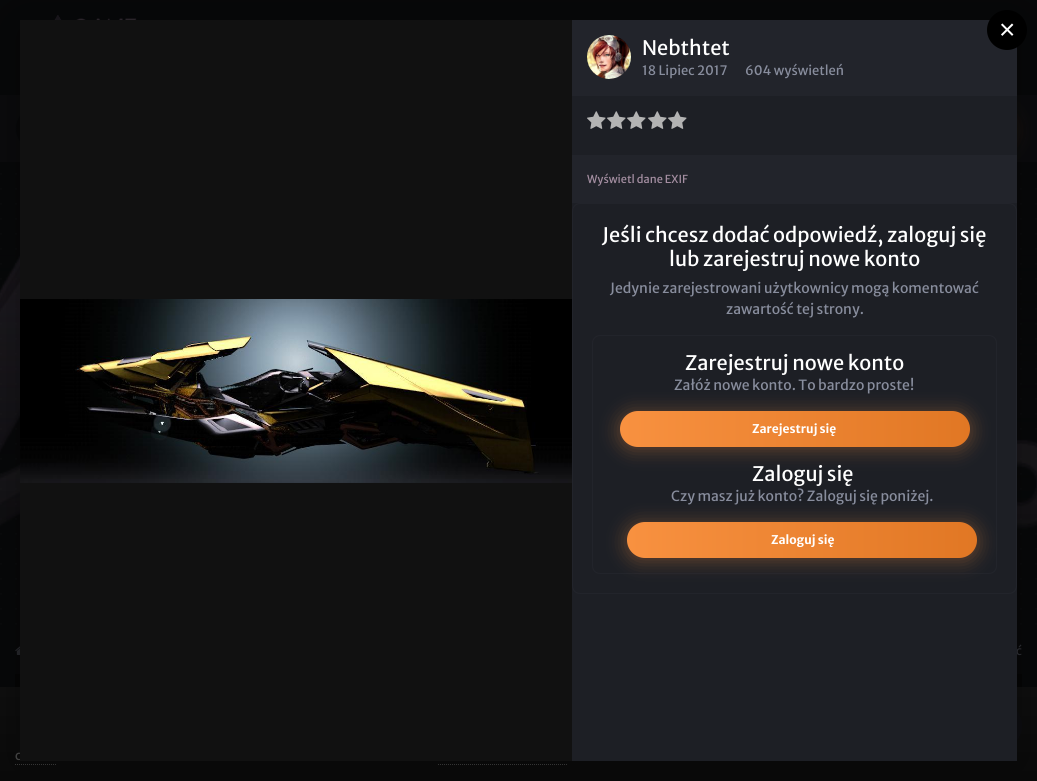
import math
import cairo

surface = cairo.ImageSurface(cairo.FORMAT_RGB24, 1037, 781)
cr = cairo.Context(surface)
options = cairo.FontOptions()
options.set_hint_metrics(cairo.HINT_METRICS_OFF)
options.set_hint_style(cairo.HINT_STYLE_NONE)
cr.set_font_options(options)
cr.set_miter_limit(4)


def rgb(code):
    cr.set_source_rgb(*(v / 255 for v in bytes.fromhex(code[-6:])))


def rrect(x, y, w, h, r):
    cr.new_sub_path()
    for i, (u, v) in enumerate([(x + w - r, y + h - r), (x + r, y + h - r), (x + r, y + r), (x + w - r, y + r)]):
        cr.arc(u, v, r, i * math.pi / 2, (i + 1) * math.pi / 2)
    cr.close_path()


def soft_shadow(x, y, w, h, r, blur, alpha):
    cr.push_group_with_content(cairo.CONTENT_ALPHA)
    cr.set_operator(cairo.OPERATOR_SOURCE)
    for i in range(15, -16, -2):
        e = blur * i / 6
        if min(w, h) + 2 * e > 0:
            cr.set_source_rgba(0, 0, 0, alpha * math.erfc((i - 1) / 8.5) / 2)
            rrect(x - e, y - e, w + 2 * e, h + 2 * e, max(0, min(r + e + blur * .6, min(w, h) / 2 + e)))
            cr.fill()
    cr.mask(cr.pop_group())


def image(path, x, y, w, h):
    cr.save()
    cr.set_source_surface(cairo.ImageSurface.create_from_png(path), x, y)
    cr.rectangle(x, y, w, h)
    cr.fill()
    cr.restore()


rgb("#070809")
cr.paint()
image("img/1.png", 54, 15, 83, 5)
rgb("#0b0b0d")
cr.rectangle(0, 95, 1037, 67)
cr.fill()
rgb("#070809")
rrect(15.5, 105.5, 216, 46, 23)
cr.fill_preserve()
rgb("#0a0b0d")
cr.set_line_width(1)
cr.stroke()
image("img/6.png", 0, 255, 1037, 275)
gradient = cairo.LinearGradient(519, 157, 519, 626)
gradient.add_color_stop_rgba(0, 0.027, 0.031, 0.035, 0)
gradient.add_color_stop_rgba(1, 0.027, 0.031, 0.035, 0.9)
cr.set_source(gradient)
cr.rectangle(0, 255, 1037, 275)
cr.fill()
image("img/5.png", 0, 173, 1037, 452)
rgb("#4a2c13")
soft_shadow(879, 111, 137, 39, 19.5, 9, 0.3)
image("img/7.png", 15, 646, 5, 9)
rgb("#050505")
cr.rectangle(15, 674, 1007, 13)
cr.fill()
gradient = cairo.LinearGradient(519, 687, 519, 781)
gradient.add_color_stop_rgba(0, 0.059, 0.059, 0.059, 1)
gradient.add_color_stop_rgba(1, 0.039, 0.039, 0.039, 1)
cr.set_source(gradient)
cr.rectangle(0, 687, 1037, 94)
cr.fill()
rgb("#0e0e11")
rrect(872, 702, 150, 48, 24)
cr.fill()
cr.new_path()
cr.move_to(15, 764.5)
cr.line_to(56, 764.5)
rgb("#414141")
cr.set_dash([1, 1])
cr.stroke()
cr.new_path()
cr.move_to(438, 764.5)
cr.line_to(568, 764.5)
cr.stroke()
rgb("#000000")
soft_shadow(20, 25, 997, 741, 0, 27.5, 0.4)
rgb("#22242b")
cr.rectangle(572, 20, 445, 76)
cr.fill()
rgb("#000000")
cr.arc(1007, 30, 20, 0, 2 * math.pi)
cr.fill()
image("img/3.png", 587, 35, 44, 44)
cr.select_font_face("Liberation Sans")
cr.set_font_size(28)
rgb("#ffffff")
cr.move_to(999, 39)
cr.show_text("×")
cr.select_font_face("Merriweather Sans")
cr.set_font_size(20)
cr.move_to(642, 55)
cr.show_text("Nebthtet")
cr.set_font_size(13)
rgb("#888d9d")
cr.move_to(642, 75)
cr.show_text("18 Lipiec 2017")
cr.move_to(745, 75)
cr.show_text("604 wyświetleń")
cr.set_font_size(12)
rgb("#292a2f")
cr.move_to(1016, 655)
cr.show_text("ć")
rgb("#1d1f25")
cr.rectangle(572, 96, 445, 665)
cr.fill()
rrect(572.5, 203.5, 444, 390, 7.5)
rgb("#22242b")
cr.set_dash([])
cr.stroke()
rrect(592.5, 335.5, 404, 238, 7.5)
cr.stroke()
rgb("#f89140")
soft_shadow(625, 522, 354, 40, 20, 9, 0.3)
gradient = cairo.LinearGradient(627, 540, 977, 540)
gradient.add_color_stop_rgba(0, 0.973, 0.569, 0.251, 1)
gradient.add_color_stop_rgba(1, 0.882, 0.467, 0.141, 1)
cr.set_source(gradient)
rrect(627, 522, 350, 36, 18)
cr.fill()
cr.select_font_face("Merriweather Sans", cairo.FONT_SLANT_NORMAL, cairo.FONT_WEIGHT_BOLD)
rgb("#ffffff")
cr.move_to(771, 544)
cr.show_text("Zaloguj się")
rgb("#f89140")
soft_shadow(618, 411, 354, 40, 20, 9, 0.3)
gradient = cairo.LinearGradient(620, 429, 970, 429)
gradient.add_color_stop_rgba(0, 0.973, 0.569, 0.251, 1)
gradient.add_color_stop_rgba(1, 0.882, 0.467, 0.141, 1)
cr.set_source(gradient)
rrect(620, 411, 350, 36, 18)
cr.fill()
rgb("#ffffff")
cr.move_to(752, 433)
cr.show_text("Zarejestruj się")
cr.select_font_face("Merriweather Sans")
cr.set_font_size(14)
rgb("#888d9d")
cr.move_to(726, 314)
cr.show_text("zawartość tej strony.")
cr.move_to(610, 293)
cr.show_text("Jedynie zarejestrowani użytkownicy mogą komentować")
cr.set_font_size(20)
rgb("#ffffff")
cr.move_to(669, 266)
cr.show_text("lub zarejestruj nowe konto")
cr.move_to(602, 242)
cr.show_text("Jeśli chcesz dodać odpowiedź, zaloguj się")
rgb("#22242b")
cr.rectangle(572, 155, 445, 48)
cr.fill()
cr.set_font_size(11)
rgb("#a58fa2")
cr.move_to(587, 183)
cr.show_text("Wyświetl dane EXIF")
image("img/4.png", 668, 111, 19, 18)
image("img/4.png", 648, 111, 19, 18)
image("img/4.png", 627, 111, 19, 18)
image("img/4.png", 607, 111, 19, 18)
image("img/4.png", 587, 111, 19, 18)
cr.set_font_size(14)
rgb("#888d9d")
cr.move_to(671, 501)
cr.show_text("Czy masz już konto? Zaloguj się poniżej.")
cr.set_font_size(20)
rgb("#ffffff")
cr.move_to(752, 481)
cr.show_text("Zaloguj się")
cr.set_font_size(14)
rgb("#888d9d")
cr.move_to(674, 390)
cr.show_text("Załóż nowe konto. To bardzo proste!")
cr.set_font_size(20)
rgb("#ffffff")
cr.move_to(685, 370)
cr.show_text("Zarejestruj nowe konto")
cr.set_font_size(13)
rgb("#414141")
cr.move_to(15, 760)
cr.show_text("c")
rgb("#111111")
cr.rectangle(20, 20, 552, 741)
cr.fill()
image("img/2.png", 20, 299, 552, 184)
surface.write_to_png("page.png")
